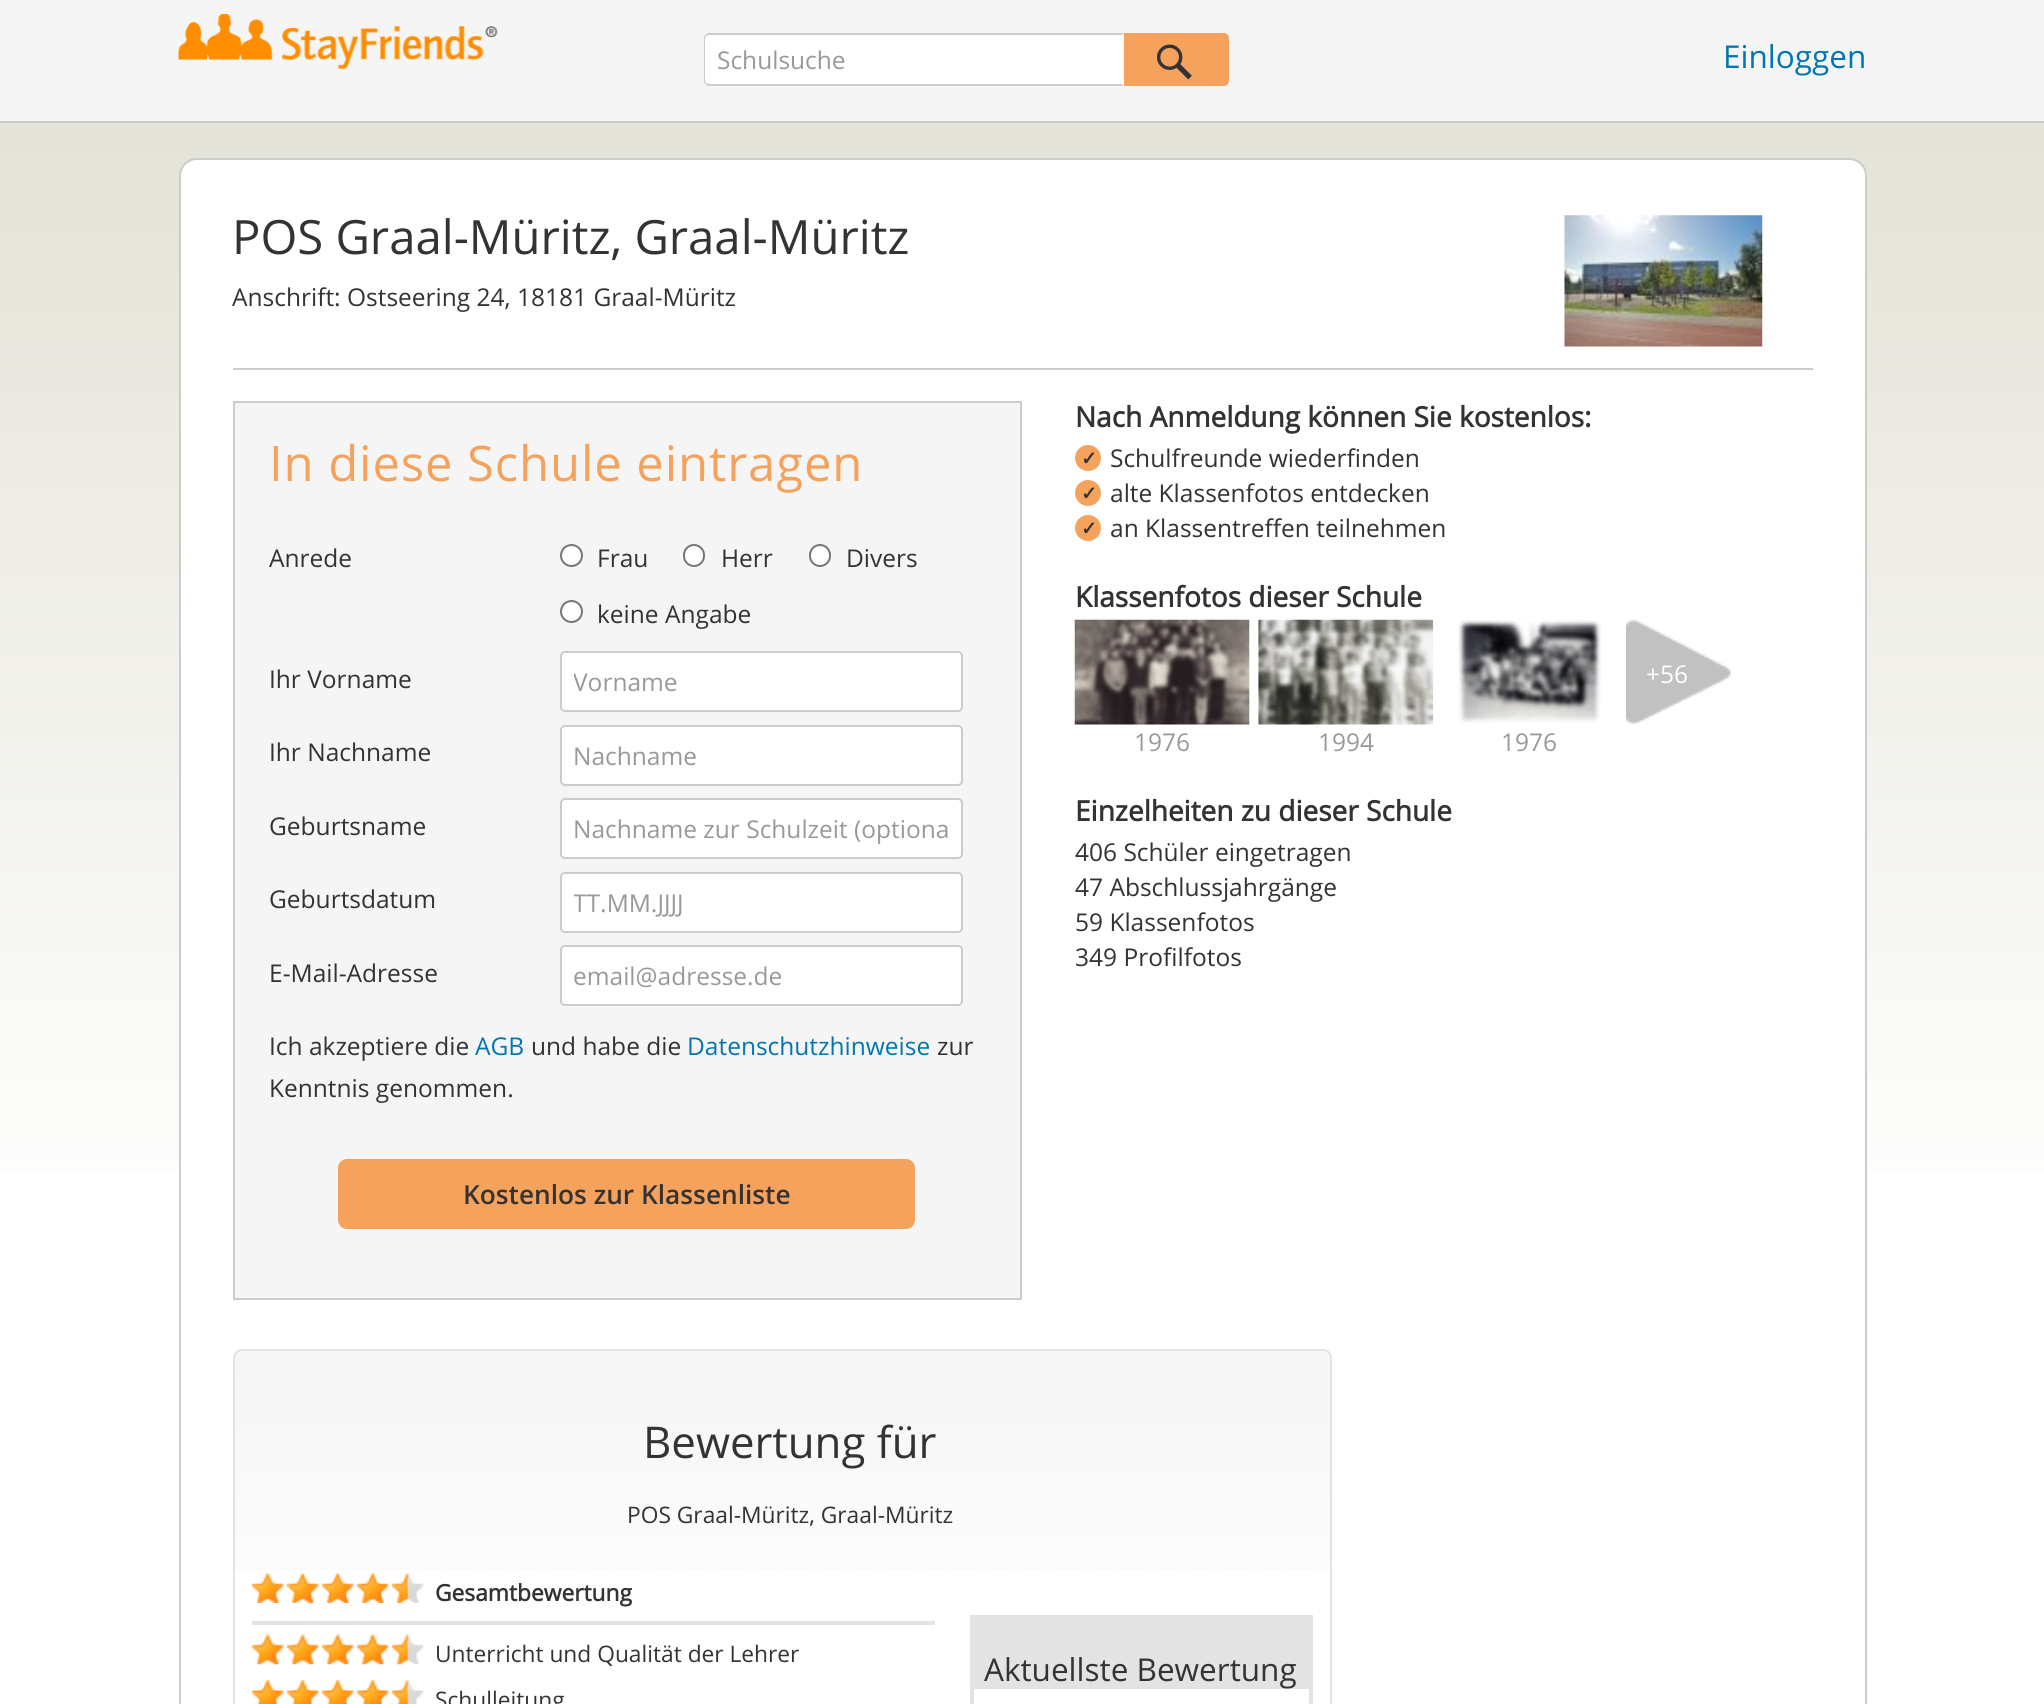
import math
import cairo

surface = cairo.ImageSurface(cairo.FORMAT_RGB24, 2044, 1704)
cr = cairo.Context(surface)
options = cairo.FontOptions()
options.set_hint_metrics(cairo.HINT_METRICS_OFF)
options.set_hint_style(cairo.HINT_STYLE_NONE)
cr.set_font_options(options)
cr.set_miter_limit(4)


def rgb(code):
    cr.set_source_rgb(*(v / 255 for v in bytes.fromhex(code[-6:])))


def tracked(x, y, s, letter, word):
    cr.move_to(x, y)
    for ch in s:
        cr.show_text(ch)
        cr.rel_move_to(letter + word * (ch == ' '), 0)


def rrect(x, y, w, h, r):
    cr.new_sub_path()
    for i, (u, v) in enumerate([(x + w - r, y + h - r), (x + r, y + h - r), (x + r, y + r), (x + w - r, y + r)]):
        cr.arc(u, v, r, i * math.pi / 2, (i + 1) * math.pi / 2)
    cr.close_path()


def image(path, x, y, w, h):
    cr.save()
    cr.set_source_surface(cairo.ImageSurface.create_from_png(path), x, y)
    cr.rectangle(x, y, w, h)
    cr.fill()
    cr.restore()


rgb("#ffffff")
cr.paint()
gradient = cairo.LinearGradient(1022, 0, 1022, 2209)
gradient.add_color_stop_rgba(0.06, 0.894, 0.89, 0.847, 1)
gradient.add_color_stop_rgba(0.55, 0.996, 0.996, 0.996, 1)
cr.set_source(gradient)
cr.rectangle(0, 123, 2044, 1049)
cr.fill()
rgb("#f5f5f5")
cr.rectangle(0, 0, 2044, 121)
cr.fill()
rgb("#cccccc")
cr.rectangle(0, 121, 2044, 2)
cr.fill()
image("img/1.png", 177, 14, 321, 56)
rgb("#ffffff")
cr.new_path()
cr.move_to(709, 33)
cr.line_to(1124, 33)
cr.line_to(1124, 86)
cr.line_to(709, 86)
cr.curve_to(706, 86, 704, 84, 704, 81)
cr.line_to(704, 38)
cr.curve_to(704, 35, 706, 33, 709, 33)
cr.close_path()
cr.fill()
rgb("#cccccc")
cr.new_path()
cr.move_to(709, 35)
cr.line_to(706, 36)
cr.line_to(705, 35)
cr.line_to(708, 33)
cr.line_to(1124, 33)
cr.line_to(1122, 35)
cr.close_path()
cr.fill()
cr.new_path()
cr.move_to(1124, 86)
cr.line_to(708, 86)
cr.line_to(705, 84)
cr.line_to(706, 83)
cr.line_to(709, 84)
cr.line_to(1122, 84)
cr.close_path()
cr.fill()
cr.new_path()
cr.move_to(705, 84)
cr.curve_to(704, 83, 704, 81, 704, 80)
cr.line_to(704, 38)
cr.curve_to(704, 37, 704, 36, 705, 35)
cr.line_to(706, 36)
cr.line_to(705, 38)
cr.line_to(705, 80)
cr.line_to(706, 83)
cr.close_path()
cr.fill()
rgb("#f5a25d")
cr.new_path()
cr.move_to(1125, 34)
cr.line_to(1224, 34)
cr.curve_to(1226, 34, 1228, 36, 1228, 38)
cr.line_to(1228, 81)
cr.curve_to(1228, 83, 1226, 85, 1224, 85)
cr.line_to(1125, 85)
cr.close_path()
cr.fill_preserve()
cr.stroke()
image("img/2.png", 1157, 44, 35, 36)
rgb("#ffffff")
rrect(180, 159, 1686, 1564, 17)
cr.fill_preserve()
rgb("#cccccc")
cr.stroke()
cr.rectangle(233, 368, 1580, 2)
cr.fill()
image("img/3.png", 1564, 215, 199, 132)
rgb("#f5f5f5")
cr.rectangle(234, 402, 787, 897)
cr.fill_preserve()
rgb("#cccccc")
cr.stroke()
rgb("#ffffff")
cr.arc(571.5, 555.5, 10.5, 0, 2 * math.pi)
cr.fill_preserve()
rgb("#767676")
cr.stroke()
rgb("#ffffff")
rrect(684, 545, 20, 21, 10)
cr.fill_preserve()
rgb("#767676")
cr.stroke()
rgb("#ffffff")
rrect(810, 545, 20, 21, 10)
cr.fill_preserve()
rgb("#767676")
cr.stroke()
rgb("#ffffff")
cr.arc(571.5, 611.5, 10.5, 0, 2 * math.pi)
cr.fill_preserve()
rgb("#767676")
cr.stroke()
rgb("#ffffff")
rrect(561, 652, 401, 59, 4)
cr.fill_preserve()
rgb("#cccccc")
cr.stroke()
rgb("#ffffff")
rrect(561, 726, 401, 59, 4)
cr.fill_preserve()
rgb("#cccccc")
cr.stroke()
rgb("#ffffff")
rrect(561, 799, 401, 59, 4)
cr.fill_preserve()
rgb("#cccccc")
cr.stroke()
rgb("#ffffff")
rrect(561, 873, 401, 59, 4)
cr.fill_preserve()
rgb("#cccccc")
cr.stroke()
rgb("#ffffff")
rrect(561, 946, 401, 59, 4)
cr.fill_preserve()
rgb("#cccccc")
cr.stroke()
rgb("#f5a25d")
rrect(338, 1159, 577, 70, 9)
cr.fill()
cr.arc(1088, 458, 13, 0, 2 * math.pi)
cr.fill()
cr.arc(1088, 493, 13, 0, 2 * math.pi)
cr.fill()
cr.arc(1088, 528, 13, 0, 2 * math.pi)
cr.fill()
image("img/4.png", 1625, 619, 106, 106)
image("img/5.png", 1074, 619, 176, 106)
image("img/6.png", 1258, 619, 176, 106)
image("img/7.png", 1457, 620, 144, 104)
image("img/8.png", 233, 1351, 1099, 219)
rrect(234, 1350, 1097, 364, 8)
rgb("#e3e3e3")
cr.stroke()
image("img/9.png", 252, 1573, 32, 30)
image("img/9.png", 287, 1573, 32, 30)
image("img/9.png", 322, 1573, 32, 30)
image("img/10.png", 357, 1573, 32, 30)
image("img/11.png", 392, 1573, 32, 30)
cr.rectangle(252, 1621, 683, 4)
cr.fill()
image("img/12.png", 252, 1634, 32, 31)
image("img/12.png", 287, 1634, 32, 31)
image("img/12.png", 322, 1634, 32, 31)
image("img/13.png", 357, 1634, 32, 31)
image("img/14.png", 392, 1634, 32, 31)
image("img/15.png", 252, 1680, 32, 24)
image("img/15.png", 287, 1680, 32, 24)
image("img/15.png", 322, 1680, 32, 24)
image("img/16.png", 357, 1680, 32, 24)
image("img/17.png", 392, 1680, 32, 24)
cr.rectangle(972, 1617, 339, 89)
cr.set_line_width(4)
cr.stroke()
cr.rectangle(974, 1619, 335, 70)
cr.fill()
cr.select_font_face("Open Sans")
cr.set_font_size(24.5)
rgb("#999999")
cr.move_to(717, 69)
cr.show_text("Schulsuche")
cr.set_font_size(31.5)
rgb("#0077b2")
cr.move_to(1723, 68)
cr.show_text("Einloggen")
cr.set_font_size(47.25)
rgb("#333333")
cr.move_to(232, 254)
cr.show_text("POS Graal-Müritz, Graal-Müritz")
cr.set_font_size(24.5)
cr.move_to(232, 306)
cr.show_text("Anschrift: Ostseering 24, 18181 Graal-Müritz")
cr.set_font_size(49)
rgb("#f5a25d")
tracked(269, 481, "In diese Schule eintragen", 0.9, 0)
cr.set_font_size(24.5)
rgb("#333333")
for x, y, s in [
    (269, 567, "Anrede"),
    (597, 567, "Frau"),
    (721, 567, "Herr"),
    (846, 567, "Divers"),
    (597, 623, "keine Angabe"),
    (269, 688, "Ihr Vorname"),
]:
    cr.move_to(x, y)
    cr.show_text(s)
cr.save()
cr.rectangle(574, 665, 375, 33)
cr.clip()
rgb("#999999")
cr.move_to(573, 691)
cr.show_text("Vorname")
cr.restore()
cr.move_to(269, 761)
cr.show_text("Ihr Nachname")
rgb("#999999")
cr.move_to(573, 765)
cr.show_text("Nachname")
rgb("#333333")
cr.move_to(269, 835)
cr.show_text("Geburtsname")
rgb("#999999")
cr.move_to(573, 838)
cr.show_text("Nachname zur Schulzeit (optiona")
rgb("#333333")
cr.move_to(269, 908)
cr.show_text("Geburtsdatum")
cr.save()
cr.rectangle(574, 886, 375, 33)
cr.clip()
rgb("#999999")
cr.move_to(573, 912)
cr.show_text("TT.MM.JJJJ")
cr.restore()
cr.move_to(269, 982)
cr.show_text("E-Mail-Adresse")
rgb("#999999")
cr.move_to(573, 985)
cr.show_text("email@adresse.de")
rgb("#333333")
cr.move_to(269, 1055)
cr.show_text("Ich akzeptiere die")
rgb("#0077b2")
cr.move_to(475, 1055)
cr.show_text("AGB")
rgb("#333333")
cr.move_to(531, 1055)
cr.show_text("und habe die")
rgb("#0077b2")
cr.move_to(687, 1055)
cr.show_text("Datenschutzhinweise")
rgb("#333333")
cr.move_to(937, 1055)
cr.show_text("zur")
cr.move_to(269, 1097)
cr.show_text("Kenntnis genommen.")
cr.select_font_face("Open Sans SemiBold")
cr.set_font_size(26.25)
cr.move_to(463, 1204)
cr.show_text("Kostenlos zur Klassenliste")
cr.select_font_face("Open Sans", cairo.FONT_SLANT_NORMAL, cairo.FONT_WEIGHT_BOLD)
cr.set_font_size(28)
cr.move_to(1075, 427)
cr.show_text("Nach Anmeldung können Sie kostenlos:")
cr.select_font_face("DejaVu Sans", cairo.FONT_SLANT_NORMAL, cairo.FONT_WEIGHT_BOLD)
cr.set_font_size(19)
cr.move_to(1081, 465)
cr.show_text("✓")
cr.select_font_face("Open Sans")
cr.set_font_size(24.5)
cr.move_to(1110, 467)
cr.show_text("Schulfreunde wiederfinden")
cr.select_font_face("DejaVu Sans", cairo.FONT_SLANT_NORMAL, cairo.FONT_WEIGHT_BOLD)
cr.set_font_size(19)
cr.move_to(1081, 500)
cr.show_text("✓")
cr.select_font_face("Open Sans")
cr.set_font_size(24.5)
cr.move_to(1110, 502)
cr.show_text("alte Klassenfotos entdecken")
cr.select_font_face("DejaVu Sans", cairo.FONT_SLANT_NORMAL, cairo.FONT_WEIGHT_BOLD)
cr.set_font_size(19)
cr.move_to(1081, 535)
cr.show_text("✓")
cr.select_font_face("Open Sans")
cr.set_font_size(24.5)
cr.move_to(1110, 537)
cr.show_text("an Klassentreffen teilnehmen")
cr.select_font_face("Open Sans", cairo.FONT_SLANT_NORMAL, cairo.FONT_WEIGHT_BOLD)
cr.set_font_size(28)
cr.move_to(1075, 607)
cr.show_text("Klassenfotos dieser Schule")
cr.select_font_face("Open Sans")
cr.set_font_size(24.5)
rgb("#ffffff")
cr.move_to(1646, 683)
cr.show_text("+56")
rgb("#999999")
for x, y, s in [
    (1134, 751, "1976"),
    (1318, 751, "1994"),
    (1501, 751, "1976"),
]:
    cr.move_to(x, y)
    cr.show_text(s)
cr.select_font_face("Open Sans", cairo.FONT_SLANT_NORMAL, cairo.FONT_WEIGHT_BOLD)
cr.set_font_size(28)
rgb("#333333")
cr.move_to(1075, 821)
cr.show_text("Einzelheiten zu dieser Schule")
cr.select_font_face("Open Sans")
cr.set_font_size(24.5)
for x, y, s in [
    (1075, 861, "406 Schüler eingetragen"),
    (1075, 896, "47 Abschlussjahrgänge"),
    (1075, 931, "59 Klassenfotos"),
    (1075, 966, "349 Profilfotos"),
]:
    cr.move_to(x, y)
    cr.show_text(s)
cr.set_font_size(43.75)
cr.move_to(643, 1458)
cr.show_text("Bewertung für")
cr.set_font_size(22.75)
cr.move_to(627, 1523)
cr.show_text("POS Graal-Müritz, Graal-Müritz")
cr.select_font_face("Open Sans", cairo.FONT_SLANT_NORMAL, cairo.FONT_WEIGHT_BOLD)
cr.move_to(435, 1601)
cr.show_text("Gesamtbewertung")
cr.select_font_face("Open Sans")
cr.move_to(435, 1662)
cr.show_text("Unterricht und Qualität der Lehrer")
cr.move_to(435, 1708)
cr.show_text("Schulleitung")
cr.set_font_size(31.5)
cr.move_to(984, 1681)
cr.show_text("Aktuellste Bewertung")
surface.write_to_png("page.png")
